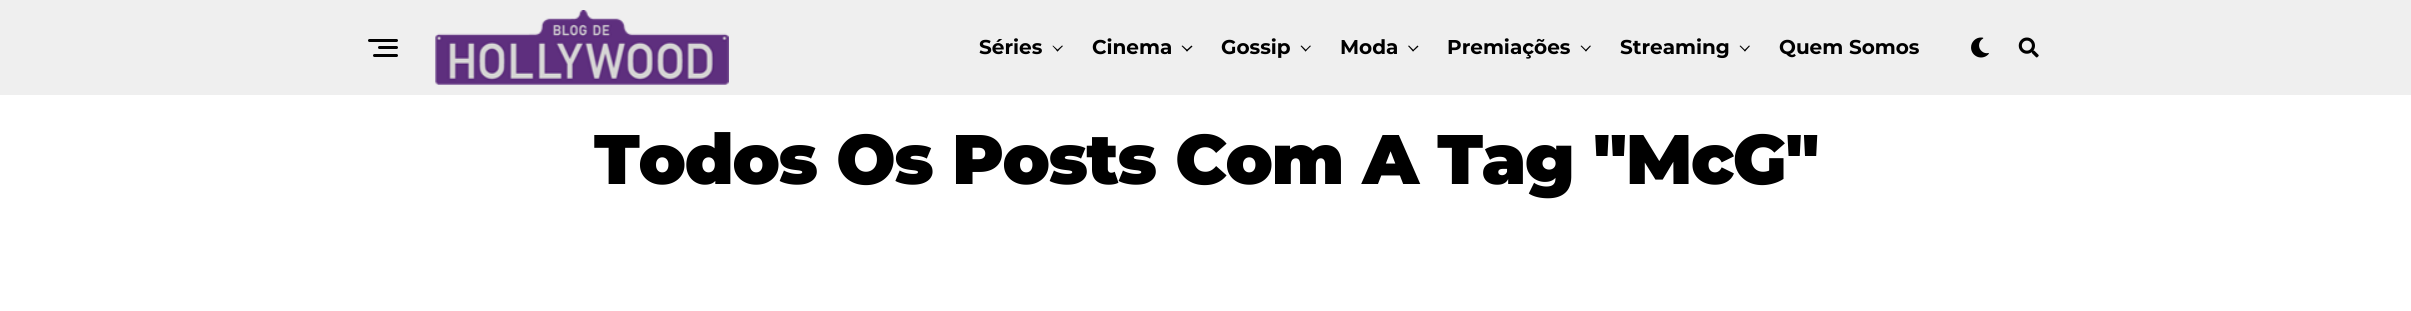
import math
import cairo

surface = cairo.ImageSurface(cairo.FORMAT_RGB24, 2411, 311)
cr = cairo.Context(surface)
options = cairo.FontOptions()
options.set_hint_metrics(cairo.HINT_METRICS_OFF)
options.set_hint_style(cairo.HINT_STYLE_NONE)
cr.set_font_options(options)
cr.set_miter_limit(4)


def rgb(code):
    cr.set_source_rgb(*(v / 255 for v in bytes.fromhex(code[-6:])))


def tracked(x, y, s, letter, word):
    cr.move_to(x, y)
    for ch in s:
        cr.show_text(ch)
        cr.rel_move_to(letter + word * (ch == ' '), 0)


def rrect(x, y, w, h, r):
    cr.new_sub_path()
    for i, (u, v) in enumerate([(x + w - r, y + h - r), (x + r, y + h - r), (x + r, y + r), (x + w - r, y + r)]):
        cr.arc(u, v, r, i * math.pi / 2, (i + 1) * math.pi / 2)
    cr.close_path()


def image(path, x, y, w, h):
    cr.save()
    cr.set_source_surface(cairo.ImageSurface.create_from_png(path), x, y)
    cr.rectangle(x, y, w, h)
    cr.fill()
    cr.restore()


rgb("#ffffff")
cr.paint()
rgb("#efefef")
cr.rectangle(0, 0, 2411, 95)
cr.fill()
rgb("#000000")
rrect(368, 39, 30, 3, 1.5)
cr.fill()
rrect(378, 46, 20, 3, 1.5)
cr.fill()
rrect(373, 54, 25, 3, 1.5)
cr.fill()
image("img/1.png", 435, 10, 294, 75)
cr.new_path()
cr.move_to(1062, 45.5)
cr.line_to(1063, 46)
cr.line_to(1057.5, 51.5)
cr.line_to(1056.5, 50.5)
cr.close_path()
cr.fill()
cr.new_path()
cr.move_to(1053, 45.5)
cr.line_to(1058.5, 50.5)
cr.line_to(1057.5, 51.5)
cr.line_to(1052.5, 46)
cr.close_path()
cr.fill()
cr.new_path()
cr.move_to(1191.5, 45.5)
cr.line_to(1192.5, 46.5)
cr.line_to(1187, 51.5)
cr.line_to(1186, 50.5)
cr.close_path()
cr.fill()
cr.new_path()
cr.move_to(1182.5, 45.5)
cr.line_to(1188, 50.5)
cr.line_to(1187, 51.5)
cr.line_to(1181.5, 46)
cr.close_path()
cr.fill()
cr.new_path()
cr.move_to(1310, 45.5)
cr.line_to(1311, 46)
cr.line_to(1305.5, 51.5)
cr.line_to(1305, 50.5)
cr.close_path()
cr.fill()
cr.new_path()
cr.move_to(1301.5, 45.5)
cr.line_to(1306.5, 50.5)
cr.line_to(1305.5, 51.5)
cr.line_to(1300.5, 46)
cr.close_path()
cr.fill()
cr.new_path()
cr.move_to(1417.5, 45.5)
cr.line_to(1418.5, 46.5)
cr.line_to(1413, 51.5)
cr.line_to(1412.5, 50.5)
cr.close_path()
cr.fill()
cr.new_path()
cr.move_to(1409, 45.5)
cr.line_to(1414, 50.5)
cr.line_to(1413, 51.5)
cr.line_to(1408, 46)
cr.close_path()
cr.fill()
cr.new_path()
cr.move_to(1590, 45.5)
cr.line_to(1591, 46)
cr.line_to(1586, 51.5)
cr.line_to(1585, 50.5)
cr.close_path()
cr.fill()
cr.new_path()
cr.move_to(1581.5, 45.5)
cr.line_to(1586.5, 50.5)
cr.line_to(1586, 51.5)
cr.line_to(1580.5, 46)
cr.close_path()
cr.fill()
cr.new_path()
cr.move_to(1749, 45.5)
cr.line_to(1750, 46)
cr.line_to(1745, 51.5)
cr.line_to(1744, 50.5)
cr.close_path()
cr.fill()
cr.new_path()
cr.move_to(1740.5, 45.5)
cr.line_to(1745.5, 50.5)
cr.line_to(1745, 51.5)
cr.line_to(1739.5, 46)
cr.close_path()
cr.fill()
image("img/2.png", 1971, 37, 18, 21)
image("img/3.png", 2018, 37, 21, 21)
cr.select_font_face("Montserrat", cairo.FONT_SLANT_NORMAL, cairo.FONT_WEIGHT_BOLD)
cr.set_font_size(20)
for x, y, s in [
    (979, 54, "Séries"),
    (1092, 54, "Cinema"),
    (1221, 54, "Gossip"),
    (1340, 54, "Moda"),
    (1447, 54, "Premiações"),
    (1620, 54, "Streaming"),
    (1779, 54, "Quem Somos"),
]:
    cr.move_to(x, y)
    cr.show_text(s)
cr.select_font_face("Montserrat Black")
cr.set_font_size(70)
tracked(594, 184, "Todos Os Posts Com A Tag \"McG\"", -1.4, 0)
surface.write_to_png("page.png")
